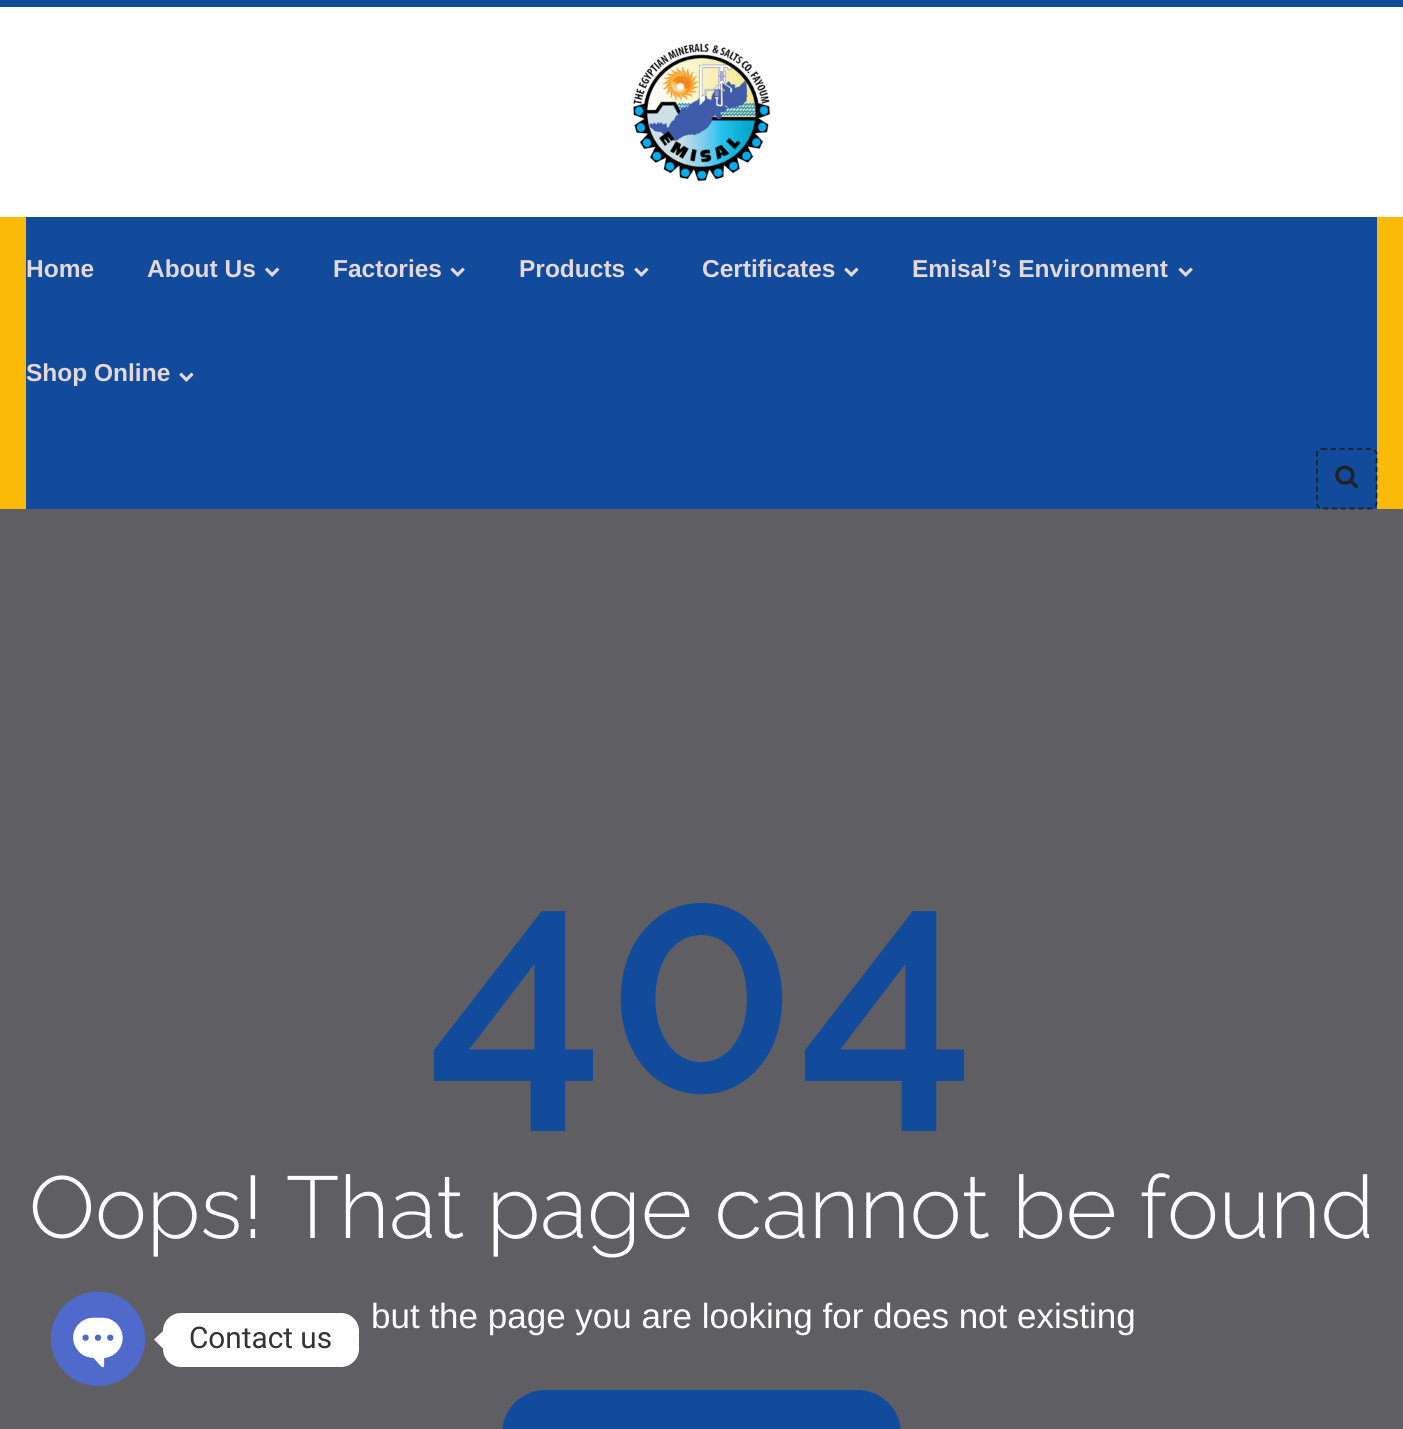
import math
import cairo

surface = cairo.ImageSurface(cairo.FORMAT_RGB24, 1403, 1429)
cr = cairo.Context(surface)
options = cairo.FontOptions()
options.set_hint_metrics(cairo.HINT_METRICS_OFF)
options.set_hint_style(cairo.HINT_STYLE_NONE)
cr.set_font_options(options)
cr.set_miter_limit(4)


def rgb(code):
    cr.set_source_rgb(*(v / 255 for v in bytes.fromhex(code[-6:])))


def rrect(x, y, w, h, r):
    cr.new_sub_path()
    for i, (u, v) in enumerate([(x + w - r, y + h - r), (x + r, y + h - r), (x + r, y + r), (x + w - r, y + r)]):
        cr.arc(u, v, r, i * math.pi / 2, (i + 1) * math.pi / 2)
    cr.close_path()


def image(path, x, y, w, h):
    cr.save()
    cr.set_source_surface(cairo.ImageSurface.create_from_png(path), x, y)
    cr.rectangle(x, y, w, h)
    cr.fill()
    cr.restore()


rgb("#ffffff")
cr.paint()
rgb("#124b9b")
cr.rectangle(0, 0, 1403, 7)
cr.fill()
image("img/1.png", 633, 43, 138, 139)
rgb("#fbb908")
cr.rectangle(0, 217, 1403, 292)
cr.fill()
rgb("#124b9b")
cr.rectangle(26, 217, 1351, 292)
cr.fill()
image("img/2.png", 265, 267, 15, 10)
image("img/3.png", 450, 267, 15, 10)
image("img/4.png", 634, 267, 15, 10)
image("img/4.png", 844, 267, 15, 10)
image("img/3.png", 1178, 267, 15, 10)
image("img/4.png", 179, 372, 15, 10)
rgb("#5f5f63")
cr.rectangle(0, 509, 1403, 920)
cr.fill()
cr.new_path()
cr.move_to(1322, 449)
cr.line_to(1371, 449)
cr.curve_to(1374, 449, 1376.5, 451, 1376.5, 454)
cr.line_to(1376.5, 503)
cr.curve_to(1376.5, 506, 1374, 508.5, 1371, 508.5)
cr.line_to(1322, 508.5)
cr.curve_to(1319, 508.5, 1317, 506, 1317, 503)
cr.line_to(1317, 454)
cr.curve_to(1317, 451, 1319, 449, 1322, 449)
cr.close_path()
rgb("#222222")
cr.set_line_width(1.8)
cr.set_dash([5.25, 3.5])
cr.stroke()
image("img/5.png", 1335, 465, 23, 24)
rgb("#124b9b")
rrect(502, 1390, 399, 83, 43.5)
cr.fill()
rgb("#4f6aca")
cr.arc(98, 1339, 47, 0, 2 * math.pi)
cr.fill()
image("img/6.png", 51, 1292, 94, 77)
rgb("#ffffff")
rrect(163, 1313, 196, 54, 18)
cr.fill()
cr.new_path()
cr.move_to(163, 1331)
cr.line_to(163, 1348.5)
cr.line_to(154, 1339.5)
cr.close_path()
cr.fill()
cr.select_font_face("Liberation Sans", cairo.FONT_SLANT_NORMAL, cairo.FONT_WEIGHT_BOLD)
cr.set_font_size(24.5)
rgb("#e3d7d7")
for x, y, s in [
    (26, 277, "Home"),
    (147, 277, "About Us"),
    (333, 277, "Factories"),
    (519, 277, "Products"),
    (702, 277, "Certificates"),
    (912, 277, "Emisal’s Environment"),
    (26, 381, "Shop Online"),
]:
    cr.move_to(x, y)
    cr.show_text(s)
cr.select_font_face("Raleway SemiBold")
cr.set_font_size(315)
rgb("#124b9b")
cr.move_to(427, 1091)
cr.show_text("404")
cr.select_font_face("Raleway Light")
cr.set_font_size(87.5)
rgb("#ffffff")
cr.move_to(29, 1238)
cr.show_text("Oops! That page cannot be found")
cr.select_font_face("Liberation Sans")
cr.set_font_size(35)
cr.move_to(371, 1328)
cr.show_text("but the page you are looking for does not existing")
cr.select_font_face("Roboto")
cr.set_font_size(29.75)
rgb("#333333")
cr.move_to(189, 1348)
cr.show_text("Contact us")
surface.write_to_png("page.png")
